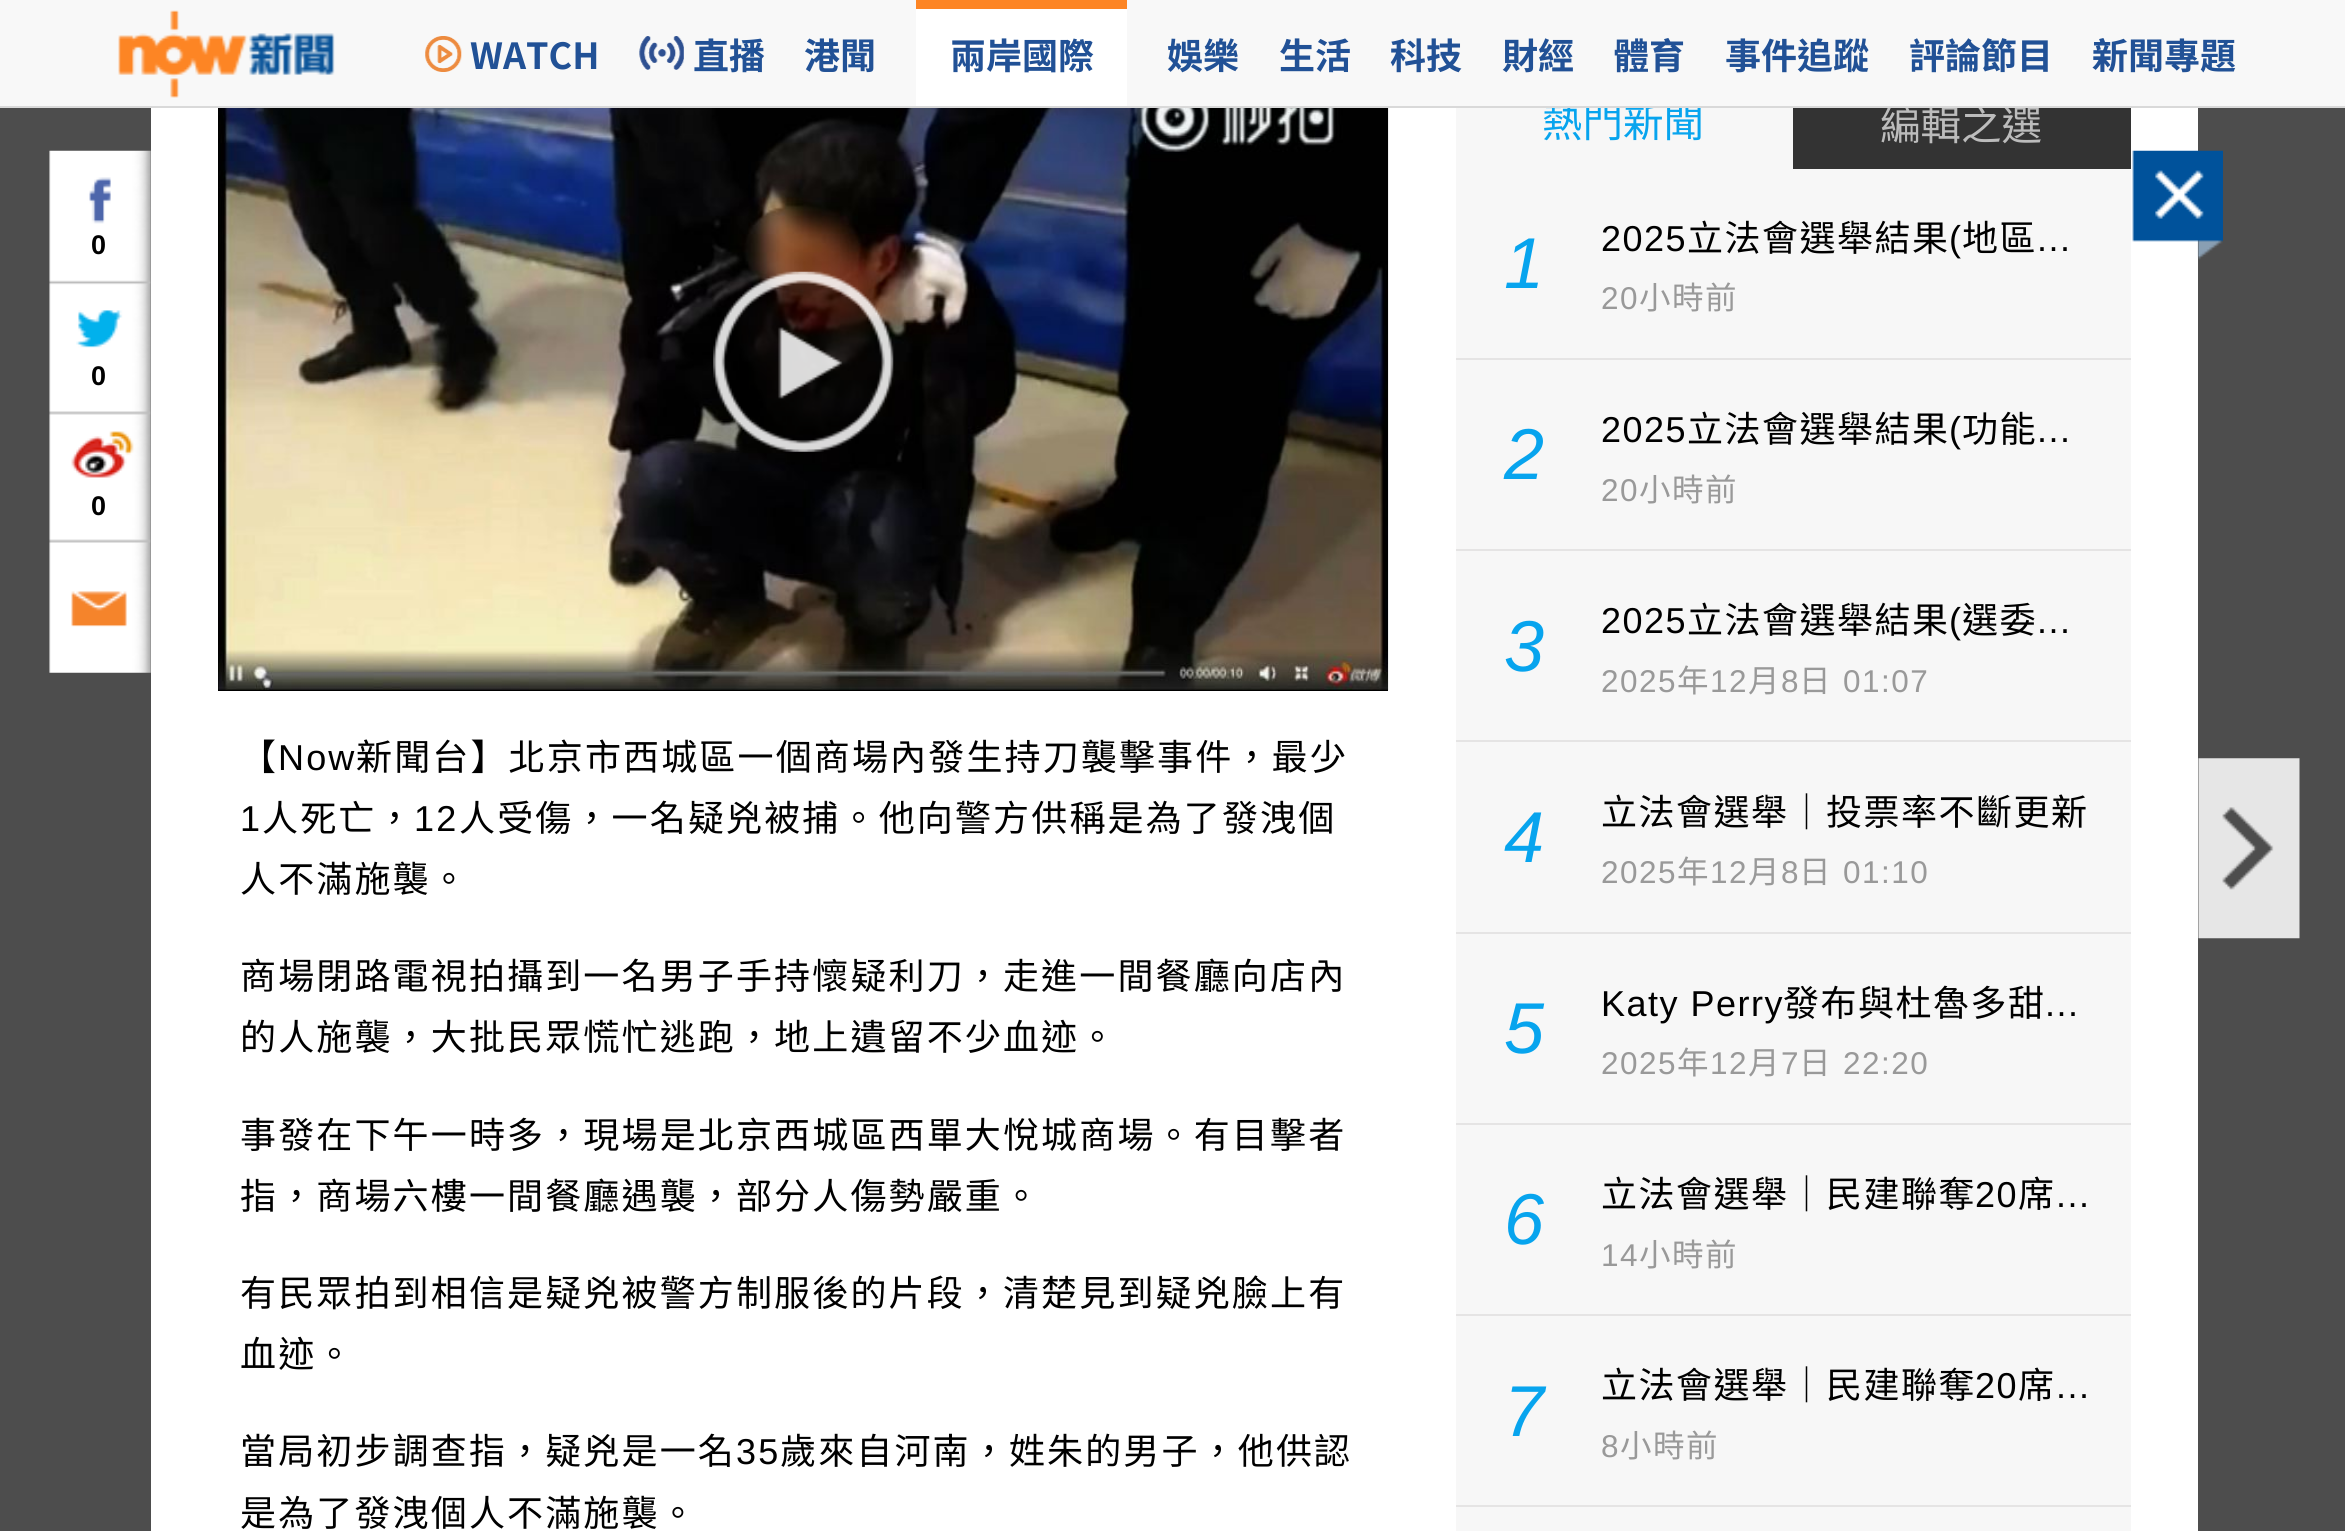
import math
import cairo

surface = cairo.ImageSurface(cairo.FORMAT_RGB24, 2345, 1531)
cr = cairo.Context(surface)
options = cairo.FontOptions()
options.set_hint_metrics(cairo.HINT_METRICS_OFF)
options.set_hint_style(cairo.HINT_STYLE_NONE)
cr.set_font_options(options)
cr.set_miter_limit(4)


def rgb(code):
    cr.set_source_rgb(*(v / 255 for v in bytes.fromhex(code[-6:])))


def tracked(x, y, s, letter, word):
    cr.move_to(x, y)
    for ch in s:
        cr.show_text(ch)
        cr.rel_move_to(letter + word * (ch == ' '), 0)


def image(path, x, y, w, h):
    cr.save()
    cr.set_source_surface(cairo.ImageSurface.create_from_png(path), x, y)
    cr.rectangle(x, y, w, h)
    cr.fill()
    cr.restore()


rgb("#4d4d4d")
cr.paint()
rgb("#ffffff")
cr.rectangle(151, 108, 2047, 1423)
cr.fill()
image("img/4.png", 2132, 150, 91, 110)
image("img/5.png", 49, 150, 102, 523)
image("img/6.png", 2198, 758, 102, 181)
rgb("#000000")
cr.rectangle(218, 108, 1170, 583)
cr.fill()
image("img/7.png", 218, 108, 1171, 582)
image("img/8.png", 713, 271, 181, 181)
for x, y, w, h, color in [
    (1456, 108, 337, 61, "#f7f7f7"),
    (1793, 108, 338, 61, "#333333"),
    (1456, 169, 675, 189, "#f7f7f7"),
    (1456, 358, 675, 2, "#e5e4e4"),
    (1456, 360, 675, 189, "#f7f7f7"),
    (1456, 549, 675, 2, "#e5e4e4"),
    (1456, 551, 675, 381, "#f7f7f7"),
    (1456, 740, 675, 2, "#e5e4e4"),
    (1456, 932, 675, 2, "#e5e4e4"),
    (1456, 934, 675, 189, "#f7f7f7"),
    (1456, 1123, 675, 2, "#e5e4e4"),
    (1456, 1125, 675, 189, "#f7f7f7"),
    (1456, 1314, 675, 2, "#e5e4e4"),
    (1456, 1316, 675, 215, "#f7f7f7"),
    (1456, 1505, 675, 2, "#e5e4e4"),
]:
    rgb(color)
    cr.rectangle(x, y, w, h)
    cr.fill()
cr.select_font_face("Liberation Sans", cairo.FONT_SLANT_NORMAL, cairo.FONT_WEIGHT_BOLD)
cr.set_font_size(27)
rgb("#000000")
for x, y, s in [
    (91, 254, "0"),
    (91, 385, "0"),
    (91, 515, "0"),
]:
    cr.move_to(x, y)
    cr.show_text(s)
cr.select_font_face("Noto Sans CJK HK")
cr.set_font_size(36)
tracked(240, 770, "【", 2.15, 0)
cr.select_font_face("Liberation Sans")
tracked(278, 770, "Now", 2.15, 0)
cr.select_font_face("Noto Sans CJK HK")
tracked(356, 770, "新聞台】北京市西城區一個商場內發生持刀襲擊事件，最少", 2.15, 0)
cr.select_font_face("Liberation Sans")
tracked(240, 831, "1", 2.15, 0)
cr.select_font_face("Noto Sans CJK HK")
tracked(262, 831, "人死亡，", 2.15, 0)
cr.select_font_face("Liberation Sans")
tracked(414, 831, "12", 2.15, 0)
cr.select_font_face("Noto Sans CJK HK")
for x, y, s in [
    (459, 831, "人受傷，一名疑兇被捕。他向警方供稱是為了發洩個"),
    (240, 892, "人不滿施襲。"),
    (240, 989, "商場閉路電視拍攝到一名男子手持懷疑利刀，走進一間餐廳向店內"),
    (240, 1050, "的人施襲，大批民眾慌忙逃跑，地上遺留不少血迹。"),
    (240, 1148, "事發在下午一時多，現場是北京西城區西單大悅城商場。有目擊者"),
    (240, 1209, "指，商場六樓一間餐廳遇襲，部分人傷勢嚴重。"),
    (240, 1306, "有民眾拍到相信是疑兇被警方制服後的片段，清楚見到疑兇臉上有"),
    (240, 1367, "血迹。"),
    (240, 1464, "當局初步調查指，疑兇是一名"),
]:
    tracked(x, y, s, 2.15, 0)
cr.select_font_face("Liberation Sans")
tracked(736, 1464, "35", 2.15, 0)
cr.select_font_face("Noto Sans CJK HK")
tracked(780, 1464, "歲來自河南，姓朱的男子，他供認", 2.15, 0)
tracked(240, 1526, "是為了發洩個人不滿施襲。", 2.15, 0)
cr.set_font_size(40.5)
rgb("#07a4ee")
cr.move_to(1542, 137)
cr.show_text("熱門新聞")
rgb("#bcbcbc")
cr.move_to(1880, 140)
cr.show_text("編輯之選")
rgb("#f8f8f8")
cr.rectangle(0, 0, 2345, 106)
cr.fill()
cr.select_font_face("Noto Sans HK", cairo.FONT_SLANT_NORMAL, cairo.FONT_WEIGHT_BOLD)
cr.set_font_size(36)
rgb("#215196")
for x, y, s in [
    (2092, 69, "新聞專題"),
    (1909, 69, "評論節目"),
    (1725, 69, "事件追蹤"),
    (1613, 69, "體育"),
    (1502, 69, "財經"),
    (1390, 69, "科技"),
    (1279, 69, "生活"),
    (1167, 69, "娛樂"),
]:
    cr.move_to(x, y)
    cr.show_text(s)
rgb("#ffffff")
cr.rectangle(916, 9, 211, 97)
cr.fill()
rgb("#215196")
cr.move_to(950, 69)
cr.show_text("兩岸國際")
rgb("#fd8524")
cr.rectangle(916, 0, 211, 9)
cr.fill()
rgb("#215196")
cr.move_to(804, 69)
cr.show_text("港聞")
cr.move_to(693, 69)
cr.show_text("直播")
image("img/3.png", 639, 36, 45, 34)
cr.move_to(470, 69)
cr.show_text("WATCH")
image("img/2.png", 425, 36, 37, 36)
image("img/1.png", 118, 10, 217, 88)
rgb("#d9d9d9")
cr.rectangle(0, 106, 2345, 2)
cr.fill()
cr.select_font_face("Liberation Sans", cairo.FONT_SLANT_ITALIC)
cr.set_font_size(72)
rgb("#07a4ee")
cr.move_to(1504, 288)
cr.show_text("1")
cr.select_font_face("Liberation Sans")
cr.set_font_size(36)
rgb("#000000")
tracked(1601, 251, "2025", 1.5, 0)
cr.select_font_face("Noto Sans CJK HK")
tracked(1687, 251, "立法會選舉結果", 1.5, 0)
cr.select_font_face("Liberation Sans")
tracked(1949, 251, "(", 1.5, 0)
cr.select_font_face("Noto Sans CJK HK")
tracked(1962, 251, "地區", 1.5, 0)
cr.select_font_face("Liberation Sans")
tracked(2037, 251, "...", 1.5, 0)
cr.set_font_size(31.5)
rgb("#999999")
tracked(1601, 309, "20", 1.5, 0)
cr.select_font_face("Noto Sans CJK HK")
tracked(1639, 309, "小時前", 1.5, 0)
cr.select_font_face("Liberation Sans", cairo.FONT_SLANT_ITALIC)
cr.set_font_size(72)
rgb("#07a4ee")
cr.move_to(1504, 479)
cr.show_text("2")
cr.select_font_face("Liberation Sans")
cr.set_font_size(36)
rgb("#000000")
tracked(1601, 442, "2025", 1.5, 0)
cr.select_font_face("Noto Sans CJK HK")
tracked(1687, 442, "立法會選舉結果", 1.5, 0)
cr.select_font_face("Liberation Sans")
tracked(1949, 442, "(", 1.5, 0)
cr.select_font_face("Noto Sans CJK HK")
tracked(1962, 442, "功能", 1.5, 0)
cr.select_font_face("Liberation Sans")
tracked(2037, 442, "...", 1.5, 0)
cr.set_font_size(31.5)
rgb("#999999")
tracked(1601, 501, "20", 1.5, 0)
cr.select_font_face("Noto Sans CJK HK")
tracked(1639, 501, "小時前", 1.5, 0)
cr.select_font_face("Liberation Sans", cairo.FONT_SLANT_ITALIC)
cr.set_font_size(72)
rgb("#07a4ee")
cr.move_to(1504, 671)
cr.show_text("3")
cr.select_font_face("Liberation Sans")
cr.set_font_size(36)
rgb("#000000")
tracked(1601, 633, "2025", 1.5, 0)
cr.select_font_face("Noto Sans CJK HK")
tracked(1687, 633, "立法會選舉結果", 1.5, 0)
cr.select_font_face("Liberation Sans")
tracked(1949, 633, "(", 1.5, 0)
cr.select_font_face("Noto Sans CJK HK")
tracked(1962, 633, "選委", 1.5, 0)
cr.select_font_face("Liberation Sans")
tracked(2037, 633, "...", 1.5, 0)
cr.set_font_size(31.5)
rgb("#999999")
tracked(1601, 692, "2025", 1.5, 0)
cr.select_font_face("Noto Sans CJK HK")
tracked(1677, 692, "年", 1.5, 0)
cr.select_font_face("Liberation Sans")
tracked(1710, 692, "12", 1.5, 0)
cr.select_font_face("Noto Sans CJK HK")
tracked(1748, 692, "月", 1.5, 0)
cr.select_font_face("Liberation Sans")
tracked(1781, 692, "8", 1.5, 0)
cr.select_font_face("Noto Sans CJK HK")
tracked(1799, 692, "日", 1.5, 0)
cr.select_font_face("Liberation Sans")
tracked(1843, 692, "01:07", 1.5, 0)
cr.select_font_face("Liberation Sans", cairo.FONT_SLANT_ITALIC)
cr.set_font_size(72)
rgb("#07a4ee")
cr.move_to(1504, 862)
cr.show_text("4")
cr.select_font_face("Noto Sans CJK HK")
cr.set_font_size(36)
rgb("#000000")
tracked(1601, 825, "立法會選舉｜投票率不斷更新", 1.5, 0)
cr.select_font_face("Liberation Sans")
cr.set_font_size(31.5)
rgb("#999999")
tracked(1601, 883, "2025", 1.5, 0)
cr.select_font_face("Noto Sans CJK HK")
tracked(1677, 883, "年", 1.5, 0)
cr.select_font_face("Liberation Sans")
tracked(1710, 883, "12", 1.5, 0)
cr.select_font_face("Noto Sans CJK HK")
tracked(1748, 883, "月", 1.5, 0)
cr.select_font_face("Liberation Sans")
tracked(1781, 883, "8", 1.5, 0)
cr.select_font_face("Noto Sans CJK HK")
tracked(1799, 883, "日", 1.5, 0)
cr.select_font_face("Liberation Sans")
tracked(1843, 883, "01:10", 1.5, 0)
cr.select_font_face("Liberation Sans", cairo.FONT_SLANT_ITALIC)
cr.set_font_size(72)
rgb("#07a4ee")
cr.move_to(1504, 1053)
cr.show_text("5")
cr.select_font_face("Liberation Sans")
cr.set_font_size(36)
rgb("#000000")
tracked(1601, 1016, "Katy Perry", 1.5, 0)
cr.select_font_face("Noto Sans CJK HK")
tracked(1783, 1016, "發布與杜魯多甜", 1.5, 0)
cr.select_font_face("Liberation Sans")
tracked(2045, 1016, "...", 1.5, 0)
cr.set_font_size(31.5)
rgb("#999999")
tracked(1601, 1074, "2025", 1.5, 0)
cr.select_font_face("Noto Sans CJK HK")
tracked(1677, 1074, "年", 1.5, 0)
cr.select_font_face("Liberation Sans")
tracked(1710, 1074, "12", 1.5, 0)
cr.select_font_face("Noto Sans CJK HK")
tracked(1748, 1074, "月", 1.5, 0)
cr.select_font_face("Liberation Sans")
tracked(1781, 1074, "7", 1.5, 0)
cr.select_font_face("Noto Sans CJK HK")
tracked(1799, 1074, "日", 1.5, 0)
cr.select_font_face("Liberation Sans")
tracked(1843, 1074, "22:20", 1.5, 0)
cr.select_font_face("Liberation Sans", cairo.FONT_SLANT_ITALIC)
cr.set_font_size(72)
rgb("#07a4ee")
cr.move_to(1504, 1244)
cr.show_text("6")
cr.select_font_face("Noto Sans CJK HK")
cr.set_font_size(36)
rgb("#000000")
tracked(1601, 1207, "立法會選舉｜民建聯奪", 1.5, 0)
cr.select_font_face("Liberation Sans")
tracked(1975, 1207, "20", 1.5, 0)
cr.select_font_face("Noto Sans CJK HK")
tracked(2018, 1207, "席", 1.5, 0)
cr.select_font_face("Liberation Sans")
tracked(2056, 1207, "...", 1.5, 0)
cr.set_font_size(31.5)
rgb("#999999")
tracked(1601, 1266, "14", 1.5, 0)
cr.select_font_face("Noto Sans CJK HK")
tracked(1639, 1266, "小時前", 1.5, 0)
cr.select_font_face("Liberation Sans", cairo.FONT_SLANT_ITALIC)
cr.set_font_size(72)
rgb("#07a4ee")
cr.move_to(1504, 1436)
cr.show_text("7")
cr.select_font_face("Noto Sans CJK HK")
cr.set_font_size(36)
rgb("#000000")
tracked(1601, 1398, "立法會選舉｜民建聯奪", 1.5, 0)
cr.select_font_face("Liberation Sans")
tracked(1975, 1398, "20", 1.5, 0)
cr.select_font_face("Noto Sans CJK HK")
tracked(2018, 1398, "席", 1.5, 0)
cr.select_font_face("Liberation Sans")
tracked(2056, 1398, "...", 1.5, 0)
cr.set_font_size(31.5)
rgb("#999999")
tracked(1601, 1457, "8", 1.5, 0)
cr.select_font_face("Noto Sans CJK HK")
tracked(1620, 1457, "小時前", 1.5, 0)
surface.write_to_png("page.png")
